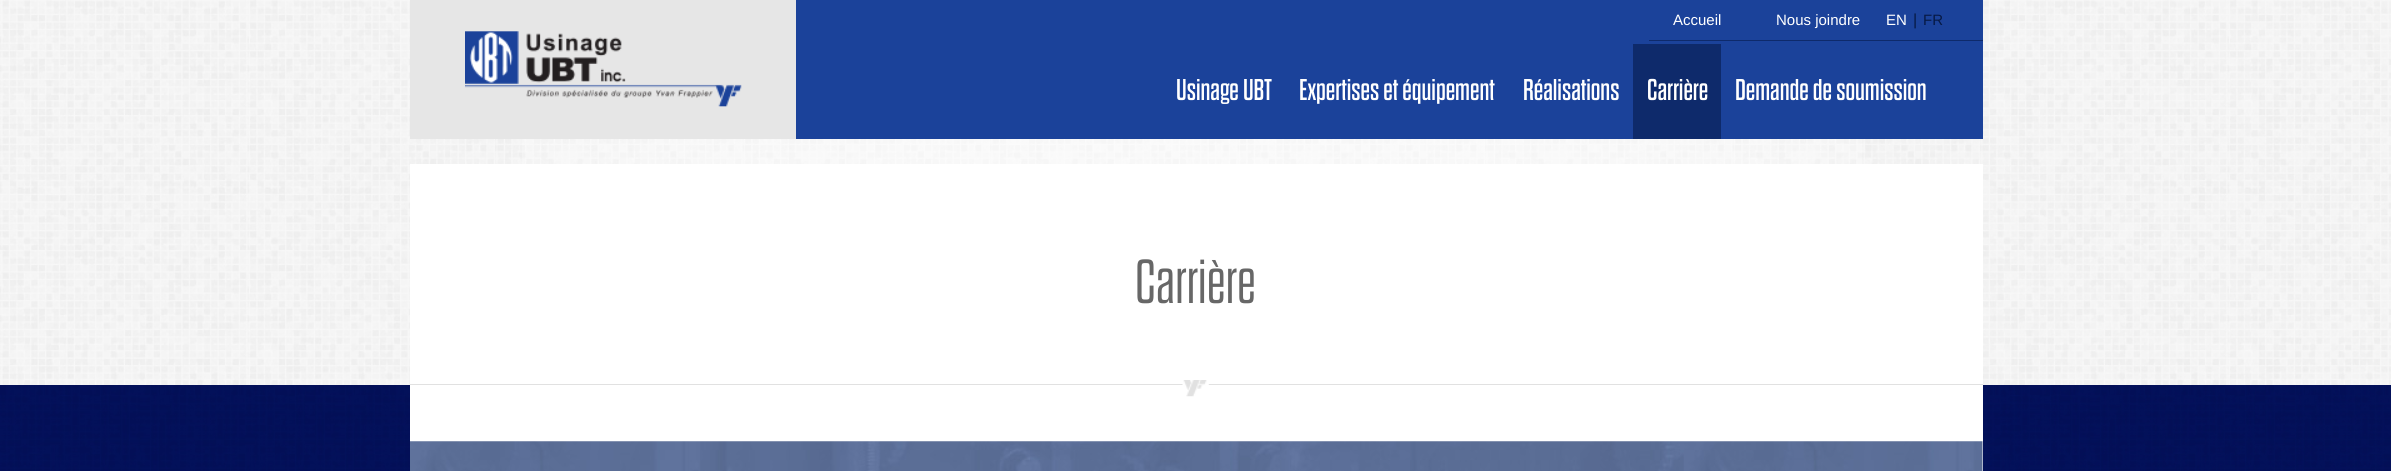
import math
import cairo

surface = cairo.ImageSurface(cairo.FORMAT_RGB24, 2391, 471)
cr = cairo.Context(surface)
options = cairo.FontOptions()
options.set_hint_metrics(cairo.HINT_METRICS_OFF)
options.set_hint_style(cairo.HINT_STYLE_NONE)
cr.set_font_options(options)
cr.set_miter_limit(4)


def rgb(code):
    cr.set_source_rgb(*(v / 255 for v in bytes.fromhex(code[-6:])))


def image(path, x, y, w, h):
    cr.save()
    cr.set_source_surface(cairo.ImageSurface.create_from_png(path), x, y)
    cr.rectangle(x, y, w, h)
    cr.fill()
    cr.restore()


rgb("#ffffff")
cr.paint()
image("img/1.png", 0, 0, 2391, 385)
image("img/2.png", 522, 139, 1340, 25)
rgb("#1b429a")
cr.rectangle(796, 0, 1187, 139)
cr.fill()
rgb("#e6e6e6")
cr.rectangle(410, 0, 386, 139)
cr.fill()
image("img/3.png", 465, 31, 277, 76)
for x, y, w, h, color in [
    (1649, 40, 334, 1, "#0e2a6b"),
    (1633, 44, 88, 95, "#0e2a6b"),
    (410, 164, 1573, 220, "#ffffff"),
    (410, 384, 1573, 1, "#e1e1e1"),
]:
    rgb(color)
    cr.rectangle(x, y, w, h)
    cr.fill()
image("img/5.png", 0, 385, 2391, 86)
rgb("#ffffff")
cr.rectangle(410, 385, 1573, 86)
cr.fill()
image("img/4.png", 1182, 380, 27, 17)
image("img/6.png", 410, 441, 1573, 30)
cr.select_font_face("Liberation Sans")
cr.set_font_size(15)
for x, y, s in [
    (1673, 25, "Accueil"),
    (1776, 25, "Nous joindre"),
    (1886, 25, "EN"),
]:
    cr.move_to(x, y)
    cr.show_text(s)
cr.set_font_size(16)
rgb("#061944")
cr.move_to(1913, 25)
cr.show_text("|")
cr.set_font_size(15)
cr.move_to(1923, 25)
cr.show_text("FR")
cr.select_font_face("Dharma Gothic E")
cr.set_font_size(30)
rgb("#ffffff")
for x, y, s in [
    (1176, 100, "Usinage UBT"),
    (1299, 100, "Expertises et équipement"),
    (1523, 100, "Réalisations"),
    (1647, 100, "Carrière"),
    (1735, 100, "Demande de soumission"),
]:
    cr.move_to(x, y)
    cr.show_text(s)
cr.select_font_face("Dharma Gothic E Light")
cr.set_font_size(62)
rgb("#676767")
cr.move_to(1135, 303)
cr.show_text("Carrière")
surface.write_to_png("page.png")
